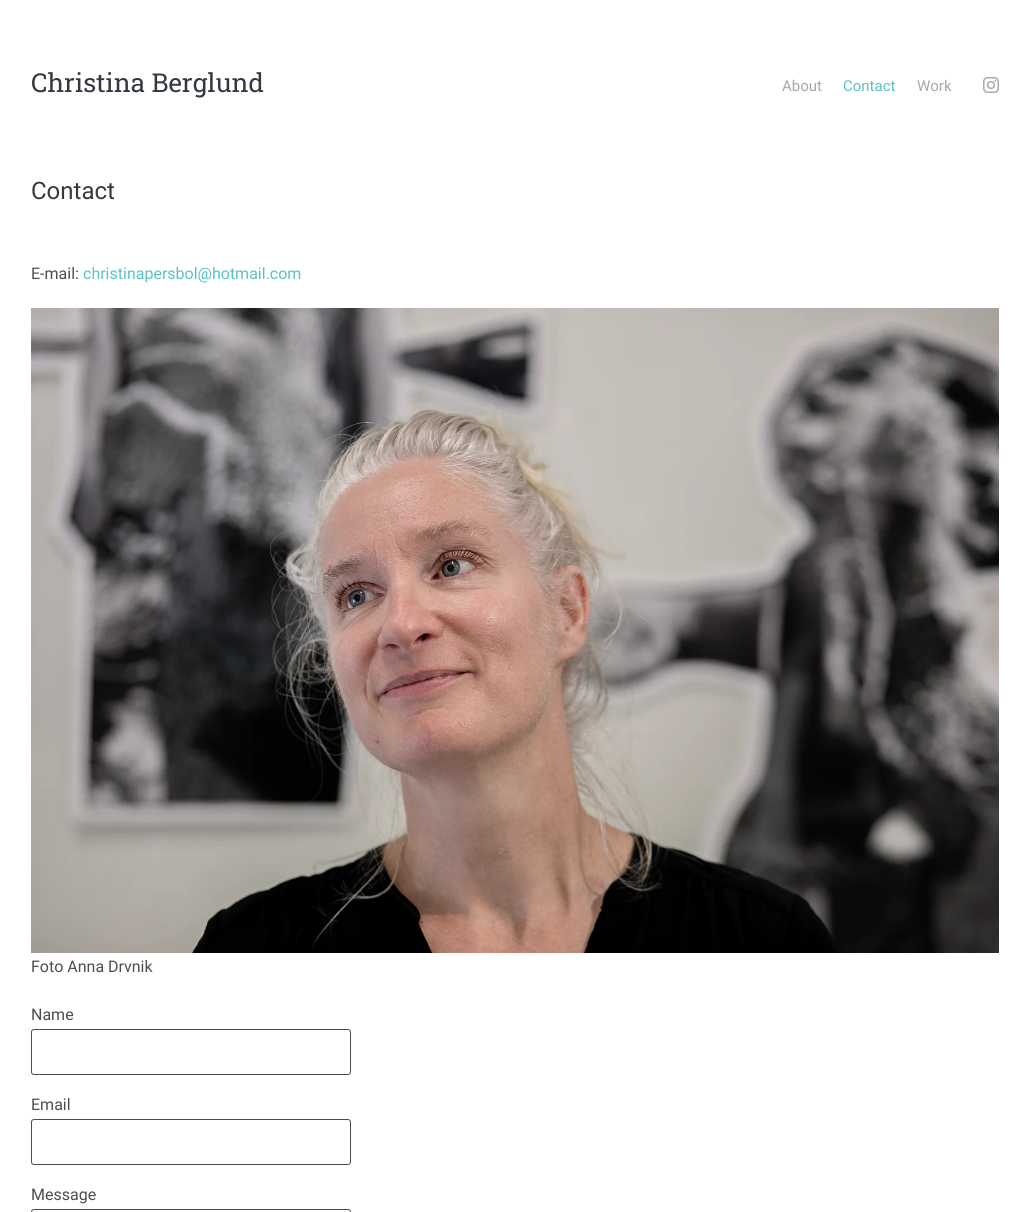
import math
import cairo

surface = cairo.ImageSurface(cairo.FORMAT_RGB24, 1030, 1212)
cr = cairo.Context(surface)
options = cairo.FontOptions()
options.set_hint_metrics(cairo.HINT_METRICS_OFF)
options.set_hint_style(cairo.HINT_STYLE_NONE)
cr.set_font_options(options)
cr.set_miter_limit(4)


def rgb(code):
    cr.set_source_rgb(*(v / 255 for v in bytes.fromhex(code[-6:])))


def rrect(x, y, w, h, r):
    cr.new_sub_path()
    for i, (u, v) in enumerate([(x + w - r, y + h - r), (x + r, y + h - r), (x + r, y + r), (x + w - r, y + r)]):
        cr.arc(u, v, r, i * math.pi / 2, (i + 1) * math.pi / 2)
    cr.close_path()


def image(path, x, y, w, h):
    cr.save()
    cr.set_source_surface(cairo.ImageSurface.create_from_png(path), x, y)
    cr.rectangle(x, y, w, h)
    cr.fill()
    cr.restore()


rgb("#ffffff")
cr.paint()
image("img/1.png", 983, 77, 16, 16)
image("img/2.png", 31, 308, 968, 645)
rrect(31.5, 1029.5, 319, 45, 2.5)
rgb("#4a4e53")
cr.set_line_width(1)
cr.stroke()
rrect(31.5, 1119.5, 319, 45, 2.5)
cr.stroke()
rrect(31.5, 1209.5, 319, 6, 2.5)
cr.stroke()
cr.select_font_face("Roboto Slab")
cr.set_font_size(26)
rgb("#33393f")
cr.move_to(31, 92)
cr.show_text("Christina Berglund")
cr.select_font_face("Roboto")
cr.set_font_size(15)
rgb("#a7a8aa")
cr.move_to(782, 91)
cr.show_text("About")
rgb("#5bc2c5")
cr.move_to(843, 91)
cr.show_text("Contact")
rgb("#a7a8aa")
cr.move_to(917, 91)
cr.show_text("Work")
cr.set_font_size(24)
rgb("#33393f")
cr.move_to(31, 199)
cr.show_text("Contact")
cr.set_font_size(16)
rgb("#4a4e53")
cr.move_to(31, 279)
cr.show_text("E-mail:")
rgb("#5bc2c5")
cr.move_to(83, 279)
cr.show_text("christinapersbol@hotmail.com")
rgb("#4a4e53")
for x, y, s in [
    (31, 972, "Foto Anna Drvnik"),
    (31, 1020, "Name"),
    (31, 1110, "Email"),
    (31, 1200, "Message"),
]:
    cr.move_to(x, y)
    cr.show_text(s)
surface.write_to_png("page.png")
